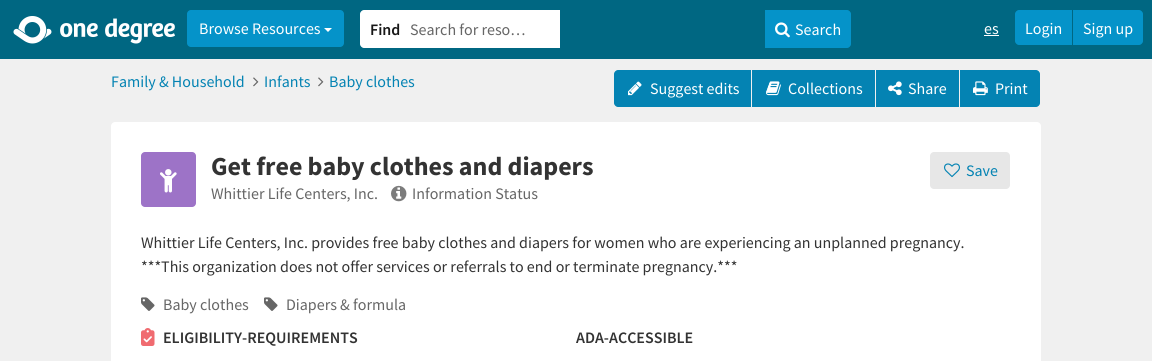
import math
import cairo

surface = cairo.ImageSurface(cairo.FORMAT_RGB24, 1152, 361)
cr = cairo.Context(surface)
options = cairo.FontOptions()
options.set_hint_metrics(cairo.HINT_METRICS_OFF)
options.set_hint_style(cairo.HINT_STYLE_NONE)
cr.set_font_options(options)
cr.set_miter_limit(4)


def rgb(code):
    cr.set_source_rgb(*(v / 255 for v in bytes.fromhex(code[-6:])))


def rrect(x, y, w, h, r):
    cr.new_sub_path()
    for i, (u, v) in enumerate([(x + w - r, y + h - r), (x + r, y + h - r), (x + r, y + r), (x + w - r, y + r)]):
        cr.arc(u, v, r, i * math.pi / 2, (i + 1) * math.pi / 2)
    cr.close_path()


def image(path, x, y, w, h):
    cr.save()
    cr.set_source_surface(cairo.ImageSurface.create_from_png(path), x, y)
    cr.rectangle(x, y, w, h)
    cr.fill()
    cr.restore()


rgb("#f0f0f0")
cr.paint()
rgb("#006782")
cr.rectangle(0, 0, 1152, 59)
cr.fill()
image("img/1.png", 13, 16, 162, 28)
rgb("#0593c9")
rrect(187, 10, 157, 37, 4)
cr.fill()
rgb("#ffffff")
cr.new_path()
cr.move_to(324, 28)
cr.line_to(332, 28)
cr.line_to(328, 32)
cr.close_path()
cr.fill()
cr.new_path()
cr.move_to(364, 10)
cr.line_to(560, 10)
cr.line_to(560, 48)
cr.line_to(364, 48)
cr.curve_to(362, 48, 360, 46, 360, 44)
cr.line_to(360, 14)
cr.curve_to(360, 12, 362, 10, 364, 10)
cr.close_path()
cr.fill()
rgb("#0593c9")
cr.new_path()
cr.move_to(765, 10)
cr.line_to(847, 10)
cr.curve_to(849, 10, 851, 12, 851, 14)
cr.line_to(851, 44)
cr.curve_to(851, 46, 849, 48, 847, 48)
cr.line_to(765, 48)
cr.close_path()
cr.fill()
image("img/2.png", 775, 22, 15, 16)
rgb("#ffffff")
cr.rectangle(984, 35, 15, 1)
cr.fill()
rgb("#0593c9")
cr.new_path()
cr.move_to(1019, 10)
cr.line_to(1072, 10)
cr.line_to(1072, 45)
cr.line_to(1019, 45)
cr.curve_to(1017, 45, 1015, 43, 1015, 41)
cr.line_to(1015, 14)
cr.curve_to(1015, 12, 1017, 10, 1019, 10)
cr.close_path()
cr.fill()
cr.new_path()
cr.move_to(1073, 10)
cr.line_to(1139, 10)
cr.curve_to(1141, 10, 1143, 12, 1143, 14)
cr.line_to(1143, 41)
cr.curve_to(1143, 43, 1141, 45, 1139, 45)
cr.line_to(1073, 45)
cr.close_path()
cr.fill()
image("img/3.png", 253, 77, 6, 10)
image("img/3.png", 318, 77, 6, 10)
rgb("#0483b3")
cr.new_path()
cr.move_to(618, 70)
cr.line_to(751, 70)
cr.line_to(751, 107)
cr.line_to(618, 107)
cr.curve_to(616, 107, 614, 105, 614, 103)
cr.line_to(614, 74)
cr.curve_to(614, 72, 616, 70, 618, 70)
cr.close_path()
cr.fill()
image("img/4.png", 628, 81, 14, 15)
cr.rectangle(752, 70, 123, 37)
cr.fill()
image("img/5.png", 766, 81, 15, 15)
cr.rectangle(876, 70, 83, 37)
cr.fill()
image("img/6.png", 888, 81, 14, 15)
cr.new_path()
cr.move_to(960, 70)
cr.line_to(1036, 70)
cr.curve_to(1038, 70, 1040, 72, 1040, 74)
cr.line_to(1040, 103)
cr.curve_to(1040, 105, 1038, 107, 1036, 107)
cr.line_to(960, 107)
cr.close_path()
cr.fill()
image("img/7.png", 973, 81, 15, 15)
rgb("#ffffff")
cr.new_path()
cr.move_to(115, 122)
cr.line_to(1037, 122)
cr.curve_to(1039, 122, 1041, 124, 1041, 126)
cr.line_to(1041, 361)
cr.line_to(111, 361)
cr.line_to(111, 126)
cr.curve_to(111, 124, 113, 122, 115, 122)
cr.close_path()
cr.fill()
rgb("#9d73c7")
rrect(141, 152, 55, 55, 4)
cr.fill()
image("img/8.png", 160, 169, 17, 24)
rgb("#e7e7e7")
rrect(930, 152, 80, 37, 4)
cr.fill()
image("img/9.png", 944, 163, 16, 15)
image("img/10.png", 391, 185, 16, 17)
image("img/11.png", 141, 297, 14, 14)
image("img/11.png", 264, 297, 14, 14)
image("img/12.png", 141, 328, 14, 18)
cr.select_font_face("Source Sans Pro")
cr.set_font_size(16)
rgb("#ffffff")
cr.move_to(199, 34)
cr.show_text("Browse Resources")
cr.select_font_face("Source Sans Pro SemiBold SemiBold")
rgb("#171717")
cr.move_to(370, 35)
cr.show_text("Find")
cr.select_font_face("Source Sans Pro")
rgb("#666666")
cr.move_to(410, 35)
cr.show_text("Search for reso…")
rgb("#ffffff")
for x, y, s in [
    (795, 35, "Search"),
    (984, 34, "es"),
    (1025, 34, "Login"),
    (1083, 34, "Sign up"),
]:
    cr.move_to(x, y)
    cr.show_text(s)
rgb("#0483b3")
for x, y, s in [
    (111, 87, "Family & Household"),
    (264, 87, "Infants"),
    (329, 87, "Baby clothes"),
]:
    cr.move_to(x, y)
    cr.show_text(s)
rgb("#ffffff")
for x, y, s in [
    (650, 94, "Suggest edits"),
    (788, 94, "Collections"),
    (908, 94, "Share"),
    (995, 94, "Print"),
]:
    cr.move_to(x, y)
    cr.show_text(s)
cr.select_font_face("Source Sans Pro", cairo.FONT_SLANT_NORMAL, cairo.FONT_WEIGHT_BOLD)
cr.set_font_size(26)
rgb("#333333")
cr.move_to(211, 175)
cr.show_text("Get free baby clothes and diapers")
cr.select_font_face("Source Sans Pro")
cr.set_font_size(16)
rgb("#0483b3")
cr.move_to(966, 176)
cr.show_text("Save")
rgb("#666666")
cr.move_to(211, 199)
cr.show_text("Whittier Life Centers, Inc.")
cr.move_to(412, 199)
cr.show_text("Information Status")
rgb("#333333")
cr.move_to(141, 248)
cr.show_text("Whittier Life Centers, Inc. provides free baby clothes and diapers for women who are experiencing an unplanned pregnancy.")
cr.move_to(141, 272)
cr.show_text("***This organization does not offer services or referrals to end or terminate pregnancy.***")
rgb("#666666")
cr.move_to(163, 310)
cr.show_text("Baby clothes")
cr.move_to(286, 310)
cr.show_text("Diapers & formula")
cr.select_font_face("Source Sans Pro SemiBold SemiBold")
rgb("#333333")
cr.move_to(163, 343)
cr.show_text("ELIGIBILITY-REQUIREMENTS")
cr.move_to(576, 343)
cr.show_text("ADA-ACCESSIBLE")
surface.write_to_png("page.png")
